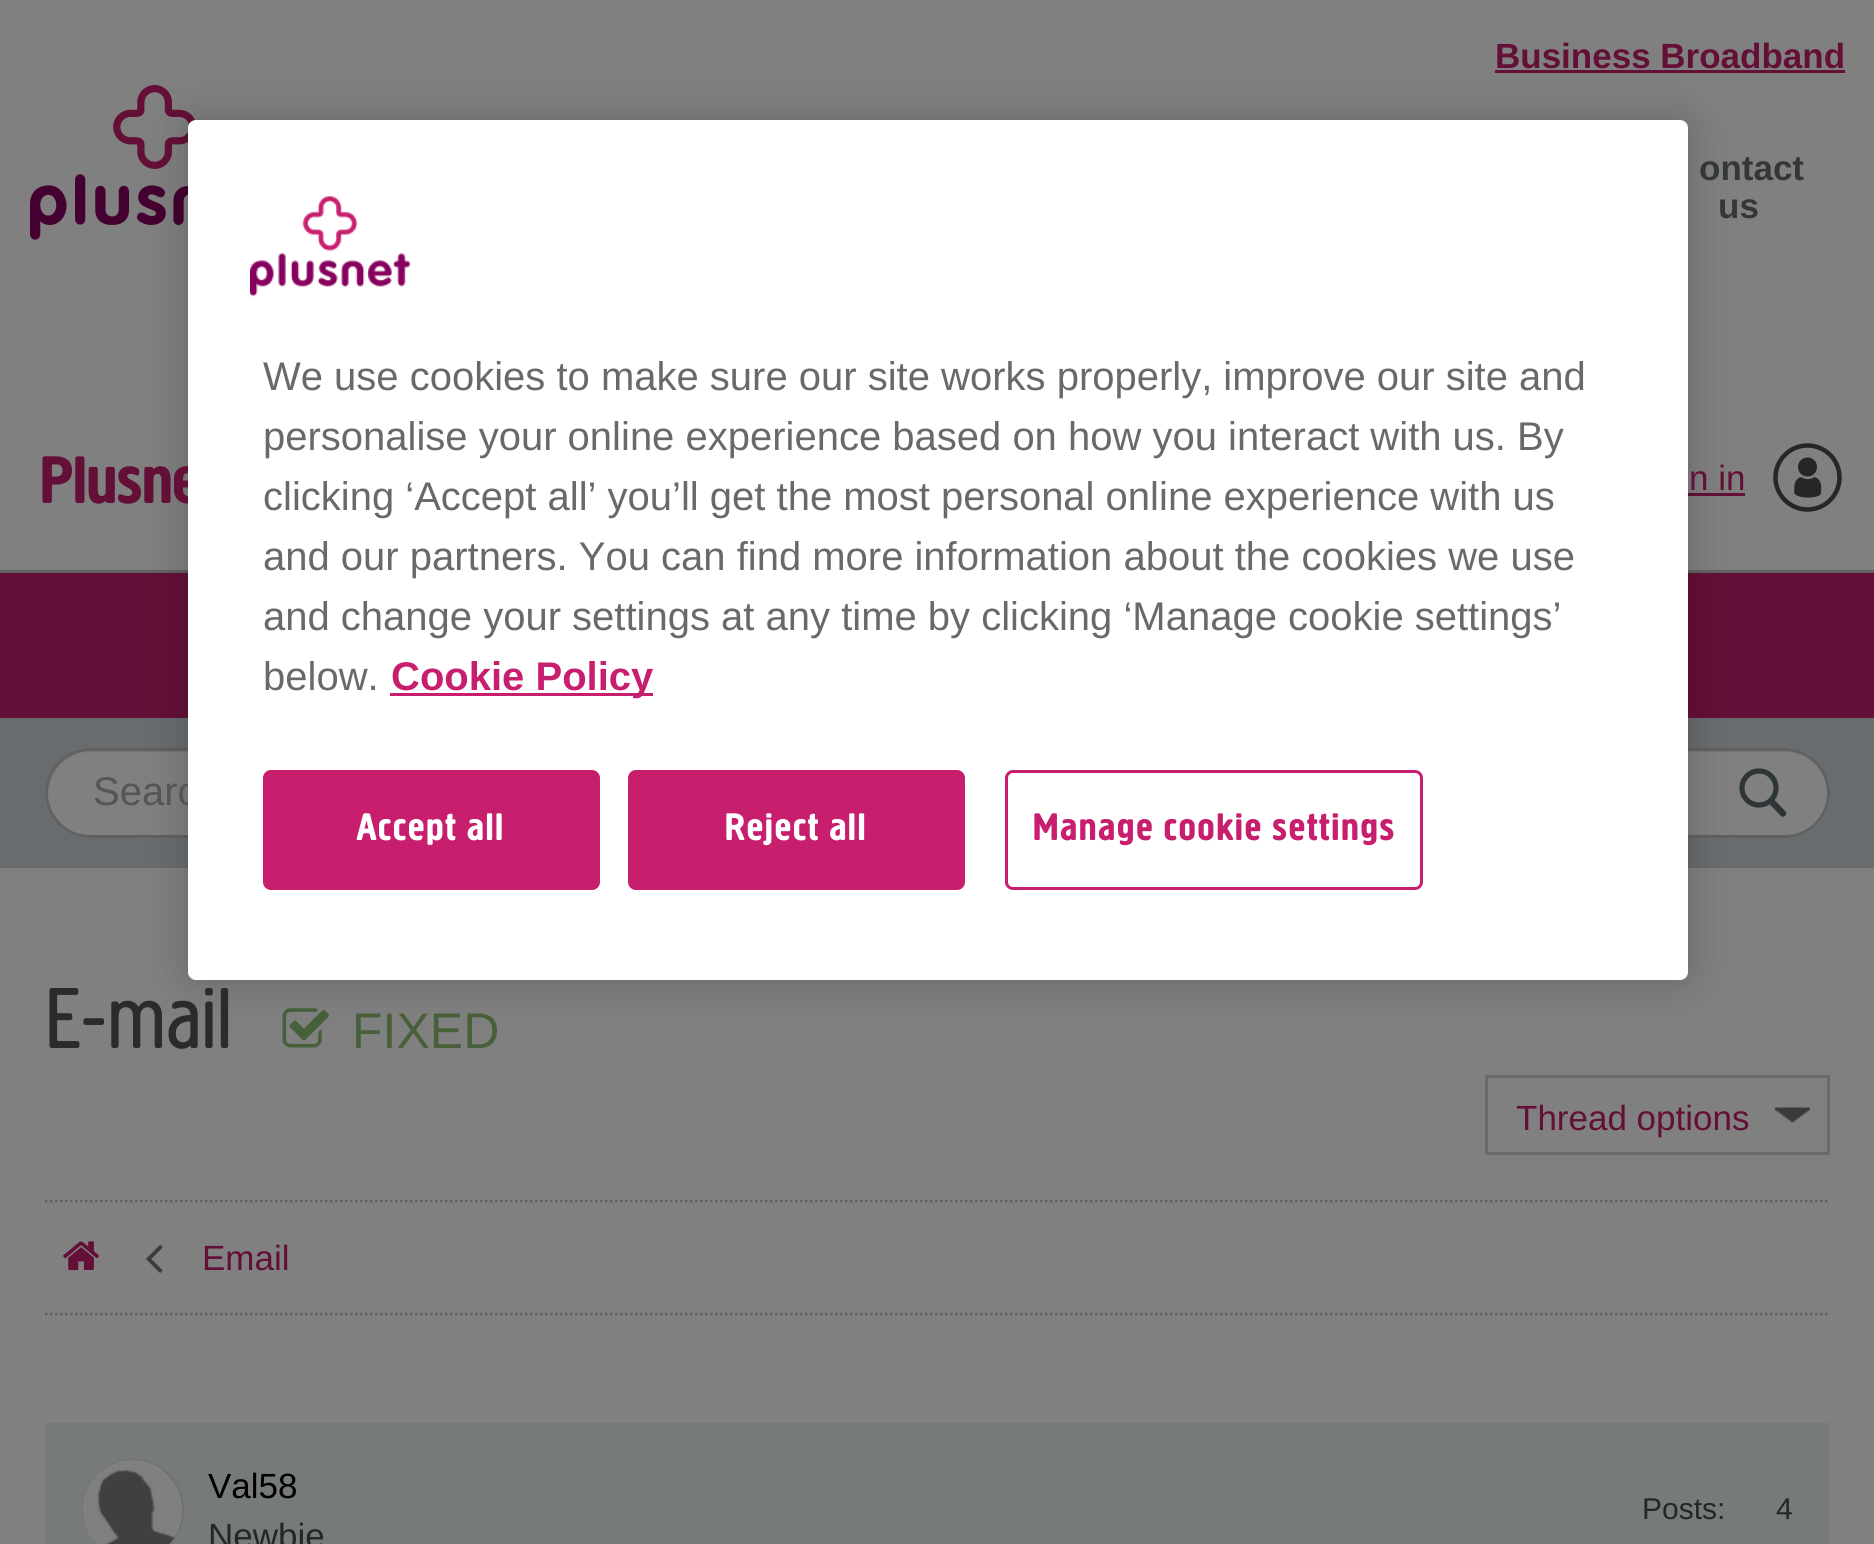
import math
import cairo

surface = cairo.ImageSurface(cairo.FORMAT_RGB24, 1874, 1544)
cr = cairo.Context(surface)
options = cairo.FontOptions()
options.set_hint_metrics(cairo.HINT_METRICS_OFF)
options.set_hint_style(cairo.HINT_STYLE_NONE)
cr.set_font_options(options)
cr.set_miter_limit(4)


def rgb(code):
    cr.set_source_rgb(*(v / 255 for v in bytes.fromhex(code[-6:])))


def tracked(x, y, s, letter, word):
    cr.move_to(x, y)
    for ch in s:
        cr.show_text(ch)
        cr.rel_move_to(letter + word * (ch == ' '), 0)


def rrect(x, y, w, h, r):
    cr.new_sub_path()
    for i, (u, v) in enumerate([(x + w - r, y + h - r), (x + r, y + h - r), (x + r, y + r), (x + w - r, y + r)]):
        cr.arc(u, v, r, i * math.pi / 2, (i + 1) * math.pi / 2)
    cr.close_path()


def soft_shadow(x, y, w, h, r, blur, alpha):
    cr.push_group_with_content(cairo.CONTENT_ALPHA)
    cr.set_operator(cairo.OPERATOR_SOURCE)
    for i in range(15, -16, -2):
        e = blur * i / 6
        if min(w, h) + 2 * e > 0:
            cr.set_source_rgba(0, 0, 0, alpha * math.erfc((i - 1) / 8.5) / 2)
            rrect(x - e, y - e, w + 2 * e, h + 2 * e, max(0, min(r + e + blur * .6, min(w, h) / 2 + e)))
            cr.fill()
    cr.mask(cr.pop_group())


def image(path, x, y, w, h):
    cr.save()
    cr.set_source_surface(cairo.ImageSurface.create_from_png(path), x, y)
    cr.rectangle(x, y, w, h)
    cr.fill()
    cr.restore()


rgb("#808080")
cr.paint()
image("img/1.png", 30, 85, 166, 155)
for x, y, w, h, color in [
    (1495, 70, 350, 3, "#640f37"),
    (0, 570, 1874, 3, "#616161"),
    (1688, 493, 57, 3, "#640f37"),
]:
    rgb(color)
    cr.rectangle(x, y, w, h)
    cr.fill()
image("img/2.png", 1773, 443, 69, 69)
for x, y, w, h, color in [
    (0, 573, 188, 145, "#640f37"),
    (1688, 573, 186, 145, "#640f37"),
    (0, 718, 1874, 150, "#686c6e"),
]:
    rgb(color)
    cr.rectangle(x, y, w, h)
    cr.fill()
rgb("#808080")
rrect(45, 748, 1785, 90, 45)
cr.fill()
rgb("#767676")
cr.new_path()
cr.move_to(90, 752)
cr.line_to(1785, 752)
cr.curve_to(1808, 752, 1827, 771, 1828, 794)
cr.curve_to(1829, 770, 1809, 750, 1786, 750)
cr.line_to(90, 750)
cr.curve_to(67, 750, 47, 770, 48, 794)
cr.curve_to(49, 771, 67, 752, 90, 752)
cr.close_path()
cr.fill()
rrect(46.5, 749.5, 1782, 87, 43.5)
rgb("#616161")
cr.set_line_width(3)
cr.stroke()
cr.arc(1759, 788, 17, 0, 2 * math.pi)
rgb("#2e3537")
cr.set_line_width(5.2)
cr.stroke()
cr.new_path()
cr.move_to(1772.5, 802.5)
cr.line_to(1783, 813.5)
cr.set_line_width(6.5)
cr.set_line_cap(cairo.LINE_CAP_ROUND)
cr.stroke()
cr.new_path()
cr.move_to(45, 1201)
cr.line_to(1830, 1201)
rgb("#616161")
cr.set_line_width(2.5)
cr.set_line_cap(cairo.LINE_CAP_BUTT)
cr.set_dash([2.5, 2.5])
cr.stroke()
image("img/3.png", 282, 1008, 47, 40)
image("img/4.png", 1775, 1107, 35, 16)
cr.rectangle(1486.5, 1076.5, 342, 77)
rgb("#686c6e")
cr.set_line_width(3)
cr.set_dash([])
cr.stroke()
cr.new_path()
cr.move_to(45, 1314)
cr.line_to(1830, 1314)
rgb("#616161")
cr.set_line_width(2.5)
cr.set_dash([2.5, 2.5])
cr.stroke()
image("img/5.png", 63, 1241, 36, 29)
image("img/6.png", 146, 1245, 17, 28)
cr.rectangle(49, 1427, 1777, 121)
rgb("#777a7b")
cr.set_line_width(8)
cr.set_dash([])
cr.stroke()
cr.rectangle(53, 1431, 1769, 113)
cr.fill()
rgb("#616161")
soft_shadow(83, 1460, 100, 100, 50, 1, 1)
image("img/7.png", 82, 1460, 101, 84)
rgb("#000000")
soft_shadow(188, 120, 1500, 860, 8, 22.5, 0.2)
cr.select_font_face("Liberation Sans", cairo.FONT_SLANT_NORMAL, cairo.FONT_WEIGHT_BOLD)
cr.set_font_size(35)
rgb("#640f37")
cr.move_to(1495, 68)
cr.show_text("Business Broadband")
rgb("#343738")
cr.move_to(1699, 180)
cr.show_text("ontact")
cr.move_to(1718, 218)
cr.show_text("us")
cr.select_font_face("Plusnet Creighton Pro", cairo.FONT_SLANT_NORMAL, cairo.FONT_WEIGHT_BOLD)
cr.set_font_size(70)
rgb("#640f37")
cr.move_to(40, 503)
cr.show_text("Plusne")
cr.select_font_face("Liberation Sans")
cr.set_font_size(35)
cr.move_to(1689, 490)
cr.show_text("n in")
cr.set_font_size(40)
rgb("#555555")
cr.move_to(93, 805)
cr.show_text("Searc")
cr.select_font_face("Plusnet Creighton Pro")
cr.set_font_size(90)
rgb("#2b2b2b")
cr.move_to(45, 1048)
cr.show_text("E-mail")
cr.select_font_face("Liberation Sans")
cr.set_font_size(50)
rgb("#47603a")
cr.move_to(352, 1048)
cr.show_text("FIXED")
cr.set_font_size(35)
rgb("#640f37")
cr.move_to(1516, 1130)
cr.show_text("Thread options")
cr.move_to(202, 1270)
cr.show_text("Email")
rgb("#000000")
cr.move_to(208, 1498)
cr.show_text("Val58")
cr.set_font_size(30)
rgb("#252628")
cr.move_to(1642, 1519)
cr.show_text("Posts:")
cr.move_to(1776, 1519)
cr.show_text("4")
cr.set_font_size(35)
cr.move_to(208, 1548)
cr.show_text("Newbie")
rgb("#ffffff")
rrect(188, 120, 1500, 860, 8)
cr.fill()
image("img/8.png", 250, 196, 160, 101)
cr.set_font_size(40)
rgb("#696969")
for x, y, s in [
    (263, 390, "We use cookies to make sure our site works properly, improve our site and"),
    (263, 450, "personalise your online experience based on how you interact with us. By"),
    (263, 510, "clicking ‘Accept all’ you’ll get the most personal online experience with us"),
    (263, 570, "and our partners. You can find more information about the cookies we use"),
    (263, 630, "and change your settings at any time by clicking ‘Manage cookie settings’"),
    (263, 690, "below."),
]:
    cr.move_to(x, y)
    cr.show_text(s)
rgb("#c81e6e")
cr.rectangle(390, 693, 263, 3)
cr.fill()
cr.select_font_face("Liberation Sans", cairo.FONT_SLANT_NORMAL, cairo.FONT_WEIGHT_BOLD)
cr.move_to(391, 690)
cr.show_text("Cookie Policy")
rrect(264.5, 771.5, 334, 117, 6.5)
cr.fill_preserve()
cr.set_line_width(3)
cr.stroke()
cr.select_font_face("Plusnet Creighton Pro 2", cairo.FONT_SLANT_NORMAL, cairo.FONT_WEIGHT_BOLD)
rgb("#ffffff")
tracked(357, 840, "Accept all", 2, 0)
rgb("#c81e6e")
rrect(629.5, 771.5, 334, 117, 6.5)
cr.fill_preserve()
cr.stroke()
rgb("#ffffff")
tracked(725, 840, "Reject all", 2, 0)
rrect(1006.5, 771.5, 415, 117, 6.5)
rgb("#c81e6e")
cr.stroke()
tracked(1033, 840, "Manage cookie settings", 2, 0)
surface.write_to_png("page.png")
